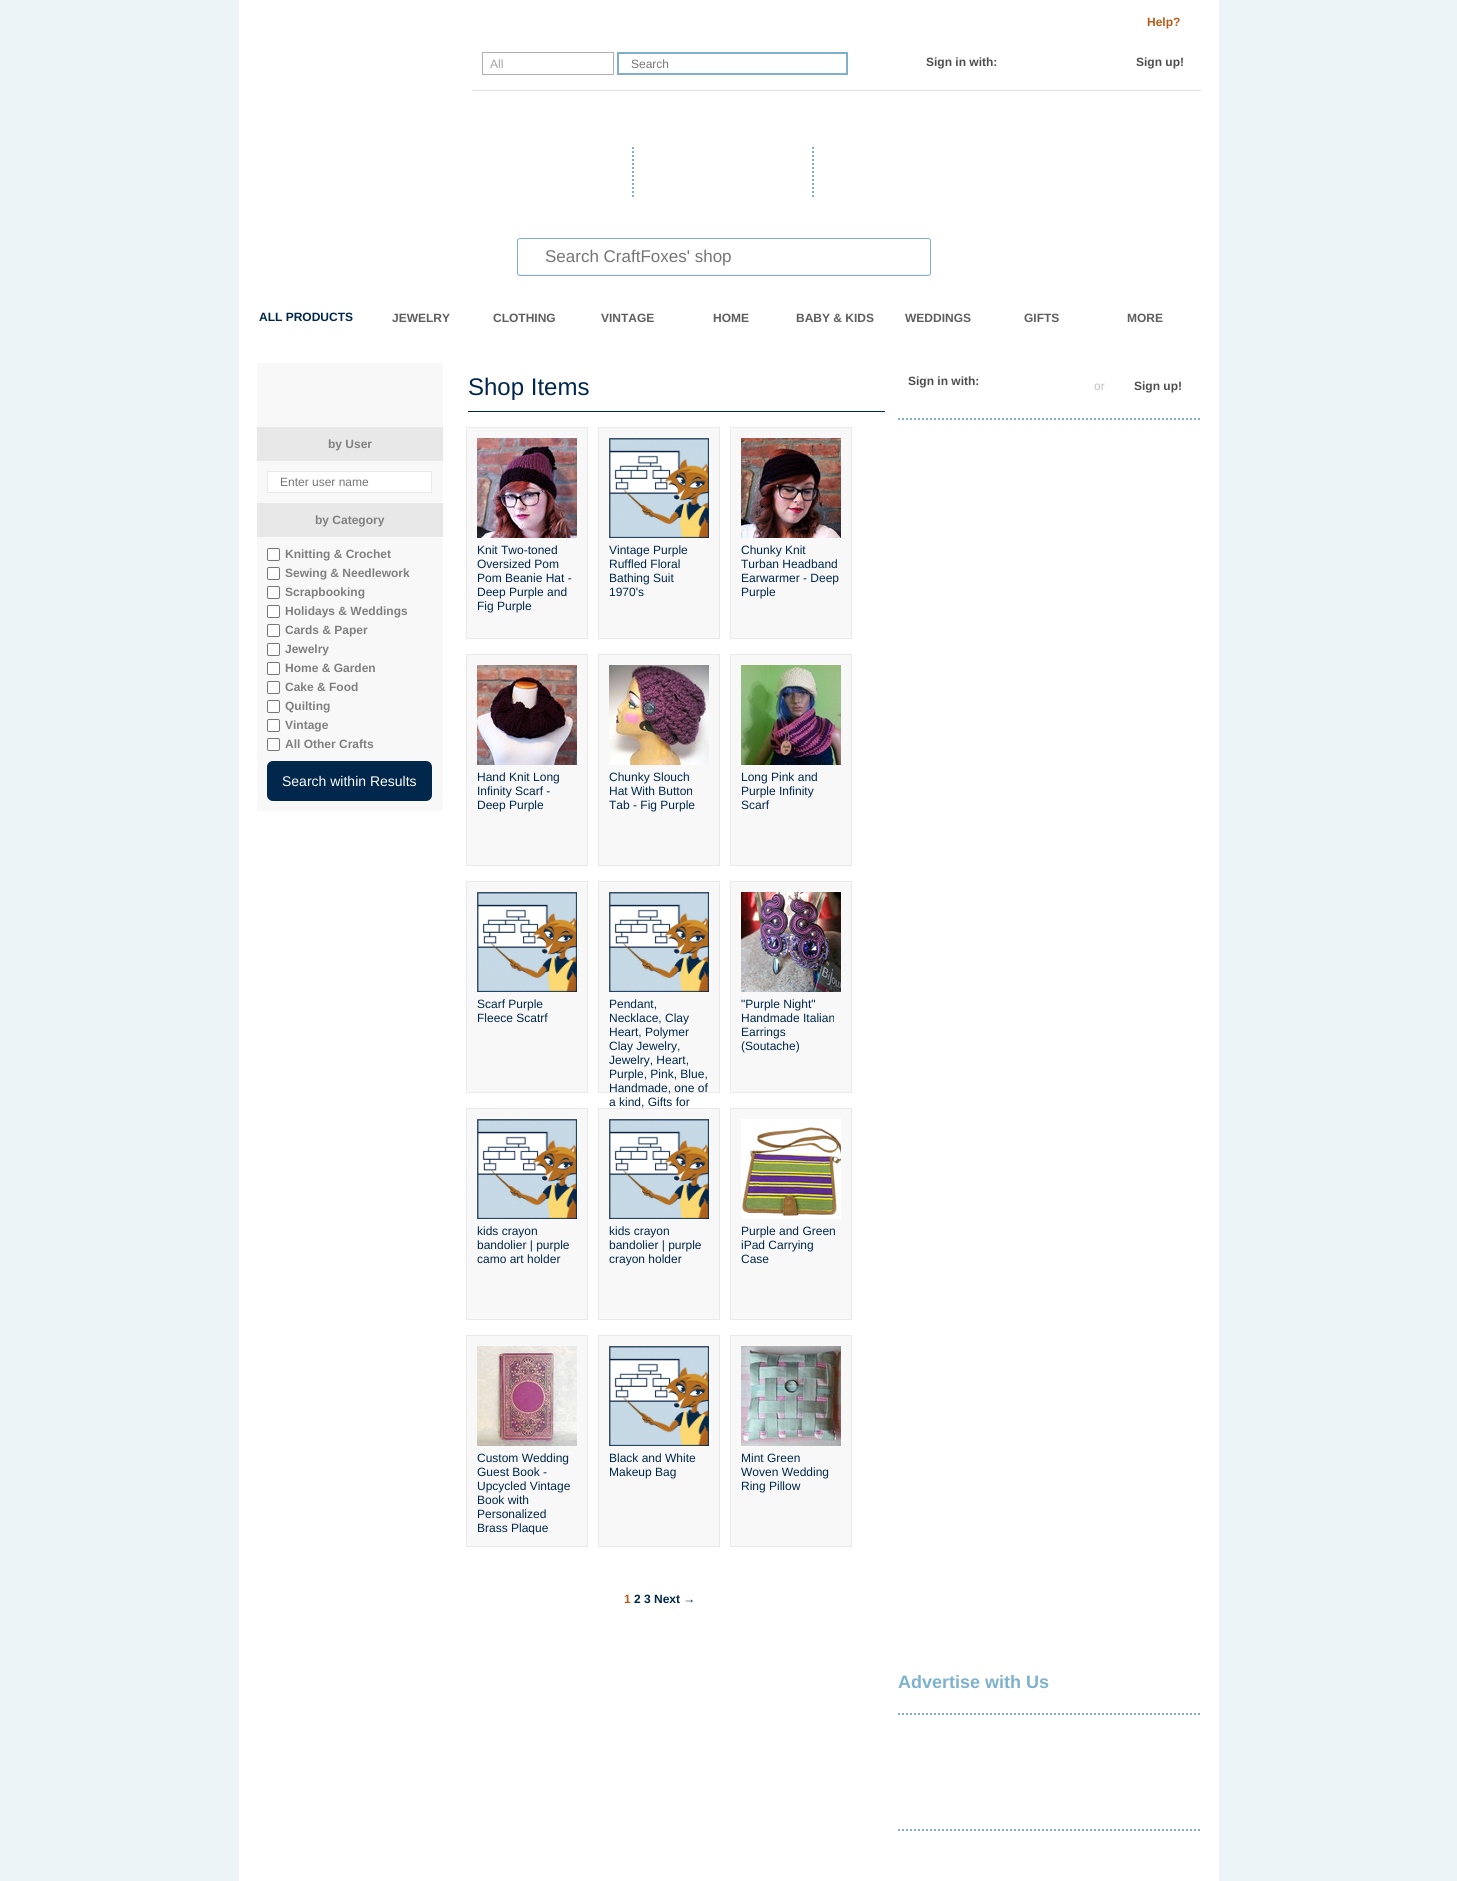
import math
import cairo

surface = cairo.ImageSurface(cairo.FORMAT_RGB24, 1457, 1881)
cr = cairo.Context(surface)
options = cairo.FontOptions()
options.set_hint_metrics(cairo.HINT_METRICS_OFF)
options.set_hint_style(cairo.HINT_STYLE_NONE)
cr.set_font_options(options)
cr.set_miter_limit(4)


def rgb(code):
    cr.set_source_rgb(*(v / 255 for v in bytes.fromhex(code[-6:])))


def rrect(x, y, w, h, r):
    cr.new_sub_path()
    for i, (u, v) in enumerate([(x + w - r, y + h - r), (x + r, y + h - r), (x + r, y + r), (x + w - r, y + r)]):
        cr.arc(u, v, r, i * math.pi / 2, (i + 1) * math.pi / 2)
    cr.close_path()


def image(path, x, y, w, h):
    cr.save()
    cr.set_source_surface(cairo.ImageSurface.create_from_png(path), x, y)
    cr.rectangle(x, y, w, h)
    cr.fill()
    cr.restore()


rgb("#ecf4f8")
cr.paint()
rgb("#ffffff")
cr.rectangle(239, 0, 980, 1881)
cr.fill()
rgb("#e2e2e2")
cr.rectangle(472, 90, 729, 1)
cr.fill()
cr.rectangle(482.5, 52.5, 131, 22)
rgb("#afafaf")
cr.set_line_width(1)
cr.stroke()
cr.rectangle(618, 53, 229, 21)
rgb("#7eb0cd")
cr.set_line_width(2)
cr.stroke()
cr.new_path()
cr.move_to(633, 147)
cr.line_to(633, 197)
rgb("#7db2ce")
cr.set_dash([2, 2])
cr.stroke()
cr.new_path()
cr.move_to(813, 147)
cr.line_to(813, 197)
cr.stroke()
rgb("#f2f2f2")
cr.new_path()
cr.move_to(518, 272)
cr.curve_to(518, 273, 518, 274, 519, 275)
cr.line_to(928, 275)
cr.line_to(930, 274)
cr.line_to(930, 272)
cr.curve_to(930, 273, 929, 274, 928, 274)
cr.line_to(520, 274)
cr.curve_to(519, 274, 518, 273, 518, 272)
cr.close_path()
cr.fill()
rrect(517.5, 238.5, 413, 37, 2.5)
rgb("#7eb0cd")
cr.set_line_width(1)
cr.set_dash([])
cr.stroke()
rgb("#f8f8f8")
cr.rectangle(257, 363, 186, 448)
cr.fill()
rgb("#e8e8e8")
cr.rectangle(257, 427, 186, 34)
cr.fill()
rgb("#ffffff")
cr.rectangle(267.5, 471.5, 164, 21)
cr.fill_preserve()
rgb("#e9e9e9")
cr.stroke()
rgb("#e8e8e8")
cr.rectangle(257, 503, 186, 34)
cr.fill()
rgb("#ffffff")
rrect(267.5, 548.5, 12, 12, 1.5)
cr.fill_preserve()
rgb("#767676")
cr.stroke()
rgb("#ffffff")
rrect(267.5, 567.5, 12, 12, 1.5)
cr.fill_preserve()
rgb("#767676")
cr.stroke()
rgb("#ffffff")
rrect(267.5, 586.5, 12, 12, 1.5)
cr.fill_preserve()
rgb("#767676")
cr.stroke()
rgb("#ffffff")
rrect(267.5, 605.5, 12, 12, 1.5)
cr.fill_preserve()
rgb("#767676")
cr.stroke()
rgb("#ffffff")
rrect(267.5, 624.5, 12, 12, 1.5)
cr.fill_preserve()
rgb("#767676")
cr.stroke()
rgb("#ffffff")
rrect(267.5, 643.5, 12, 12, 1.5)
cr.fill_preserve()
rgb("#767676")
cr.stroke()
rgb("#ffffff")
rrect(267.5, 662.5, 12, 12, 1.5)
cr.fill_preserve()
rgb("#767676")
cr.stroke()
rgb("#ffffff")
rrect(267.5, 681.5, 12, 12, 1.5)
cr.fill_preserve()
rgb("#767676")
cr.stroke()
rgb("#ffffff")
rrect(267.5, 700.5, 12, 12, 1.5)
cr.fill_preserve()
rgb("#767676")
cr.stroke()
rgb("#ffffff")
rrect(267.5, 719.5, 12, 12, 1.5)
cr.fill_preserve()
rgb("#767676")
cr.stroke()
rgb("#ffffff")
rrect(267.5, 738.5, 12, 12, 1.5)
cr.fill_preserve()
rgb("#767676")
cr.stroke()
rgb("#01284c")
rrect(267, 761, 165, 40, 6)
cr.fill()
cr.rectangle(468, 411, 417, 1)
cr.fill()
rgb("#f8f8f8")
cr.rectangle(466.5, 427.5, 121, 211)
cr.fill_preserve()
rgb("#e9e9e9")
cr.stroke()
image("img/1.png", 477, 438, 100, 100)
rgb("#f8f8f8")
cr.rectangle(598.5, 427.5, 121, 211)
cr.fill_preserve()
rgb("#e9e9e9")
cr.stroke()
image("img/2.png", 609, 438, 100, 100)
rgb("#f8f8f8")
cr.rectangle(730.5, 427.5, 121, 211)
cr.fill_preserve()
rgb("#e9e9e9")
cr.stroke()
image("img/3.png", 741, 438, 100, 100)
rgb("#f8f8f8")
cr.rectangle(466.5, 654.5, 121, 211)
cr.fill_preserve()
rgb("#e9e9e9")
cr.stroke()
image("img/4.png", 477, 665, 100, 100)
rgb("#f8f8f8")
cr.rectangle(598.5, 654.5, 121, 211)
cr.fill_preserve()
rgb("#e9e9e9")
cr.stroke()
image("img/5.png", 609, 665, 100, 100)
rgb("#f8f8f8")
cr.rectangle(730.5, 654.5, 121, 211)
cr.fill_preserve()
rgb("#e9e9e9")
cr.stroke()
image("img/6.png", 741, 665, 100, 100)
rgb("#f8f8f8")
cr.rectangle(466.5, 881.5, 121, 211)
cr.fill_preserve()
rgb("#e9e9e9")
cr.stroke()
image("img/7.png", 477, 892, 100, 100)
rgb("#f8f8f8")
cr.rectangle(598.5, 881.5, 121, 211)
cr.fill_preserve()
rgb("#e9e9e9")
cr.stroke()
image("img/2.png", 609, 892, 100, 100)
rgb("#f8f8f8")
cr.rectangle(730.5, 881.5, 121, 211)
cr.fill_preserve()
rgb("#e9e9e9")
cr.stroke()
image("img/8.png", 741, 892, 100, 100)
rgb("#f8f8f8")
cr.rectangle(466.5, 1108.5, 121, 211)
cr.fill_preserve()
rgb("#e9e9e9")
cr.stroke()
image("img/7.png", 477, 1119, 100, 100)
rgb("#f8f8f8")
cr.rectangle(598.5, 1108.5, 121, 211)
cr.fill_preserve()
rgb("#e9e9e9")
cr.stroke()
image("img/2.png", 609, 1119, 100, 100)
rgb("#f8f8f8")
cr.rectangle(730.5, 1108.5, 121, 211)
cr.fill_preserve()
rgb("#e9e9e9")
cr.stroke()
image("img/9.png", 741, 1119, 100, 100)
rgb("#f8f8f8")
cr.rectangle(466.5, 1335.5, 121, 211)
cr.fill_preserve()
rgb("#e9e9e9")
cr.stroke()
image("img/10.png", 477, 1346, 100, 100)
rgb("#f8f8f8")
cr.rectangle(598.5, 1335.5, 121, 211)
cr.fill_preserve()
rgb("#e9e9e9")
cr.stroke()
image("img/11.png", 609, 1346, 100, 100)
rgb("#f8f8f8")
cr.rectangle(730.5, 1335.5, 121, 211)
cr.fill_preserve()
rgb("#e9e9e9")
cr.stroke()
image("img/12.png", 741, 1346, 100, 100)
cr.new_path()
cr.move_to(898, 419)
cr.line_to(1201, 419)
rgb("#7db2ce")
cr.set_line_width(2)
cr.set_dash([2, 2])
cr.stroke()
cr.new_path()
cr.move_to(898, 1714)
cr.line_to(1201, 1714)
cr.stroke()
cr.new_path()
cr.move_to(898, 1830)
cr.line_to(1201, 1830)
cr.stroke()
cr.select_font_face("Liberation Sans", cairo.FONT_SLANT_NORMAL, cairo.FONT_WEIGHT_BOLD)
cr.set_font_size(12)
rgb("#ba5915")
cr.move_to(1147, 26)
cr.show_text("Help?")
cr.select_font_face("Liberation Sans")
rgb("#a3a3a3")
cr.move_to(490, 68)
cr.show_text("All")
rgb("#757575")
cr.move_to(631, 68)
cr.show_text("Search")
cr.select_font_face("Liberation Sans", cairo.FONT_SLANT_NORMAL, cairo.FONT_WEIGHT_BOLD)
rgb("#4e4e4e")
cr.move_to(926, 66)
cr.show_text("Sign in with:")
cr.move_to(1136, 66)
cr.show_text("Sign up!")
cr.select_font_face("Liberation Sans")
cr.set_font_size(17)
rgb("#757575")
cr.move_to(545, 262)
cr.show_text("Search CraftFoxes' shop")
cr.select_font_face("Liberation Sans", cairo.FONT_SLANT_NORMAL, cairo.FONT_WEIGHT_BOLD)
cr.set_font_size(12)
rgb("#00264c")
cr.move_to(259, 321)
cr.show_text("ALL PRODUCTS")
rgb("#5e5e5e")
for x, y, s in [
    (392, 322, "JEWELRY"),
    (493, 322, "CLOTHING"),
    (601, 322, "VINTAGE"),
    (713, 322, "HOME"),
    (796, 322, "BABY & KIDS"),
    (905, 322, "WEDDINGS"),
    (1024, 322, "GIFTS"),
    (1127, 322, "MORE"),
]:
    cr.move_to(x, y)
    cr.show_text(s)
rgb("#818080")
cr.move_to(328, 448)
cr.show_text("by User")
cr.select_font_face("Liberation Sans")
rgb("#757575")
cr.move_to(280, 486)
cr.show_text("Enter user name")
cr.select_font_face("Liberation Sans", cairo.FONT_SLANT_NORMAL, cairo.FONT_WEIGHT_BOLD)
rgb("#818080")
for x, y, s in [
    (315, 524, "by Category"),
    (285, 558, "Knitting & Crochet"),
    (285, 577, "Sewing & Needlework"),
    (285, 596, "Scrapbooking"),
    (285, 615, "Holidays & Weddings"),
    (285, 634, "Cards & Paper"),
    (285, 653, "Jewelry"),
    (285, 672, "Home & Garden"),
    (285, 691, "Cake & Food"),
    (285, 710, "Quilting"),
    (285, 729, "Vintage"),
    (285, 748, "All Other Crafts"),
]:
    cr.move_to(x, y)
    cr.show_text(s)
cr.select_font_face("Liberation Sans")
cr.set_font_size(14)
rgb("#ffffff")
cr.move_to(282, 786)
cr.show_text("Search within Results")
cr.set_font_size(24)
rgb("#00264c")
cr.move_to(468, 395)
cr.show_text("Shop Items")
cr.set_font_size(12)
for x, y, s in [
    (477, 554, "Knit Two-toned"),
    (477, 568, "Oversized Pom"),
    (477, 582, "Pom Beanie Hat -"),
    (477, 596, "Deep Purple and"),
    (477, 610, "Fig Purple"),
    (609, 554, "Vintage Purple"),
    (609, 568, "Ruffled Floral"),
    (609, 582, "Bathing Suit"),
    (609, 596, "1970's"),
    (741, 554, "Chunky Knit"),
    (741, 568, "Turban Headband"),
    (741, 582, "Earwarmer - Deep"),
    (741, 596, "Purple"),
    (477, 781, "Hand Knit Long"),
    (477, 795, "Infinity Scarf -"),
    (477, 809, "Deep Purple"),
    (609, 781, "Chunky Slouch"),
    (609, 795, "Hat With Button"),
    (609, 809, "Tab - Fig Purple"),
    (741, 781, "Long Pink and"),
    (741, 795, "Purple Infinity"),
    (741, 809, "Scarf"),
    (477, 1008, "Scarf Purple"),
    (477, 1022, "Fleece Scatrf"),
    (609, 1008, "Pendant,"),
    (609, 1022, "Necklace, Clay"),
    (609, 1036, "Heart, Polymer"),
    (609, 1050, "Clay Jewelry,"),
    (609, 1064, "Jewelry, Heart,"),
    (609, 1078, "Purple, Pink, Blue,"),
    (609, 1092, "Handmade, one of"),
    (609, 1106, "a kind, Gifts for"),
    (741, 1008, "\"Purple Night\""),
    (741, 1022, "Handmade Italian"),
    (741, 1036, "Earrings"),
    (741, 1050, "(Soutache)"),
    (477, 1235, "kids crayon"),
    (477, 1249, "bandolier | purple"),
    (477, 1263, "camo art holder"),
    (609, 1235, "kids crayon"),
    (609, 1249, "bandolier | purple"),
    (609, 1263, "crayon holder"),
    (741, 1235, "Purple and Green"),
    (741, 1249, "iPad Carrying"),
    (741, 1263, "Case"),
    (477, 1462, "Custom Wedding"),
    (477, 1476, "Guest Book -"),
    (477, 1490, "Upcycled Vintage"),
    (477, 1504, "Book with"),
    (477, 1518, "Personalized"),
    (477, 1532, "Brass Plaque"),
    (609, 1462, "Black and White"),
    (609, 1476, "Makeup Bag"),
    (741, 1462, "Mint Green"),
    (741, 1476, "Woven Wedding"),
    (741, 1490, "Ring Pillow"),
]:
    cr.move_to(x, y)
    cr.show_text(s)
cr.select_font_face("Liberation Sans", cairo.FONT_SLANT_NORMAL, cairo.FONT_WEIGHT_BOLD)
rgb("#ba5915")
cr.move_to(624, 1603)
cr.show_text("1")
rgb("#00264c")
cr.move_to(634, 1603)
cr.show_text("2 3 Next →")
rgb("#4e4e4e")
cr.move_to(908, 385)
cr.show_text("Sign in with:")
cr.select_font_face("Liberation Sans")
rgb("#c2c2c2")
cr.move_to(1094, 390)
cr.show_text("or")
cr.select_font_face("Liberation Sans", cairo.FONT_SLANT_NORMAL, cairo.FONT_WEIGHT_BOLD)
rgb("#4e4e4e")
cr.move_to(1134, 390)
cr.show_text("Sign up!")
cr.set_font_size(18)
rgb("#7db2ce")
cr.move_to(898, 1688)
cr.show_text("Advertise with Us")
surface.write_to_png("page.png")
